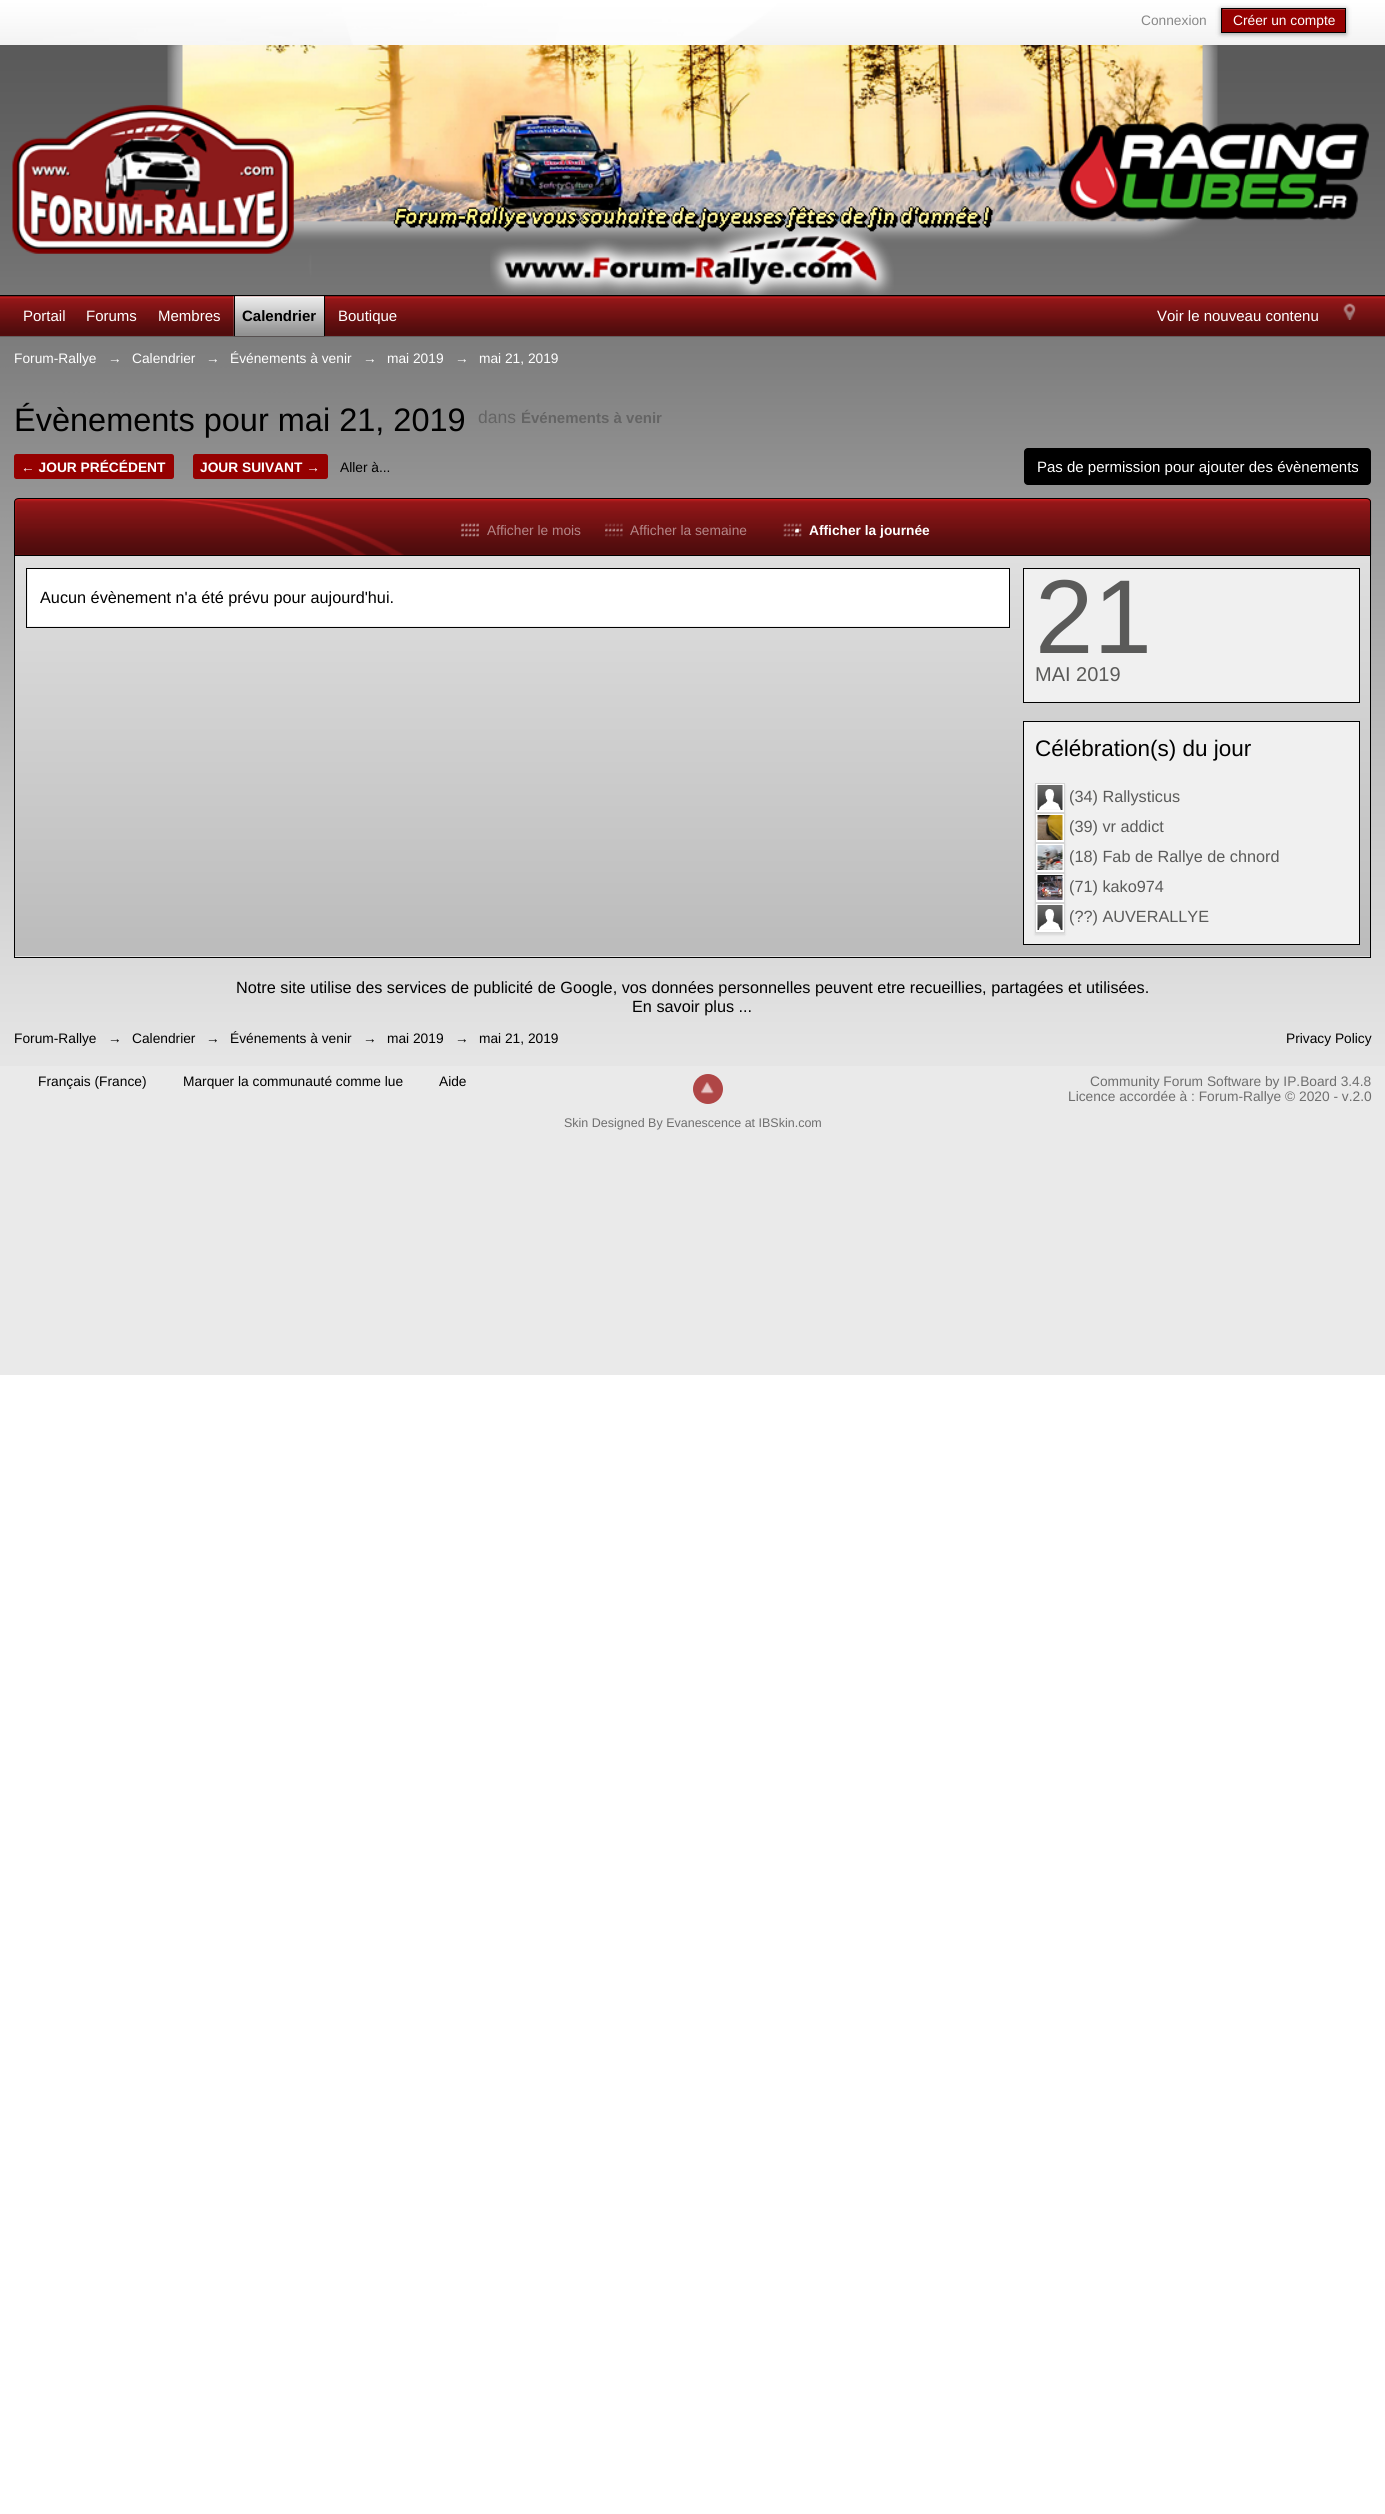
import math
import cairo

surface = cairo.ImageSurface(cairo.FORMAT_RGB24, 1385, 2514)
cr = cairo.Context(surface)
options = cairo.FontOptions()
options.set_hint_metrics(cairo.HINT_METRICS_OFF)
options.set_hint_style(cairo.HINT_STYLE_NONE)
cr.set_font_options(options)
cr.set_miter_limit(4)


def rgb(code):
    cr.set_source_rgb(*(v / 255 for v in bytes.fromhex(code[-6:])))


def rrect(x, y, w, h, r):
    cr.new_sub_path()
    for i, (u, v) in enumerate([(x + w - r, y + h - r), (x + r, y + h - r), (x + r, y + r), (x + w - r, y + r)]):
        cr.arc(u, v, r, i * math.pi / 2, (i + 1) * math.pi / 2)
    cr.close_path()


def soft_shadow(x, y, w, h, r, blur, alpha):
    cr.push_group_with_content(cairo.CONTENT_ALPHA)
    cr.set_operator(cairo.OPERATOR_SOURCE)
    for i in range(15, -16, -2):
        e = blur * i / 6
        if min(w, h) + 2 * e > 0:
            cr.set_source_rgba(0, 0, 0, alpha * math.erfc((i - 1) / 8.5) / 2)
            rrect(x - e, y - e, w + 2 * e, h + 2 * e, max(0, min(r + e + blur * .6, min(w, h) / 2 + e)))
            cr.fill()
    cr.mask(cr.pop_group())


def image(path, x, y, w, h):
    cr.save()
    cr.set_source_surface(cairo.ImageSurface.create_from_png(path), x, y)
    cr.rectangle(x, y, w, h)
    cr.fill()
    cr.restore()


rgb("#ffffff")
cr.paint()
rgb("#eaeaea")
cr.rectangle(0, 1066, 1385, 309)
cr.fill()
image("img/1.png", 0, 45, 1385, 1021)
image("img/2.png", 0, 0, 1385, 45)
rgb("#000000")
soft_shadow(1221, 9, 125, 25, 0, 2.5, 0.4)
rgb("#950000")
cr.rectangle(1222, 9, 123, 23)
cr.fill()
rgb("#aa3333")
cr.rectangle(1223, 9, 122, 1)
cr.fill()
cr.rectangle(1221.5, 8.5, 124, 24)
rgb("#000000")
cr.set_line_width(1)
cr.stroke()
image("img/3.png", 167, 45, 1051, 250)
image("img/4.png", 12, 104, 282, 150)
image("img/5.png", 1058, 122, 311, 99)
image("img/6.png", 0, 296, 1385, 41)
cr.rectangle(0, 295, 1385, 1)
cr.fill()
image("img/7.png", 233, 296, 92, 41)
cr.rectangle(324, 296, 1, 40)
cr.fill()
cr.rectangle(234, 296, 1, 40)
cr.fill()
image("img/8.png", 1343, 303, 13, 17)
rgb("#950000")
rrect(14, 454, 160, 25, 2.5)
cr.fill()
rrect(193, 454, 135, 25, 2.5)
cr.fill()
rgb("#000000")
rrect(1024, 448, 347, 37, 4)
cr.fill()
image("img/9.png", 15, 498, 1357, 57)
cr.set_fill_rule(cairo.FILL_RULE_EVEN_ODD)
cr.new_path()
cr.move_to(19, 498)
cr.line_to(1366, 498)
cr.curve_to(1369, 498, 1371, 500, 1371, 502)
cr.line_to(1371, 555)
cr.line_to(14, 555)
cr.line_to(14, 502)
cr.curve_to(14, 500, 16, 498, 19, 498)
cr.close_path()
cr.move_to(19, 499)
cr.line_to(1366, 499)
cr.curve_to(1368, 499, 1370, 500, 1370, 502)
cr.line_to(1370, 555)
cr.line_to(15, 555)
cr.line_to(15, 502)
cr.curve_to(15, 500, 17, 499, 19, 499)
cr.close_path()
cr.fill()
image("img/10.png", 461, 523, 18, 14)
image("img/11.png", 605, 523, 18, 14)
image("img/12.png", 783, 523, 19, 14)
gradient = cairo.LinearGradient(15, 556, 15, 956)
gradient.add_color_stop_rgba(0, 0.875, 0.875, 0.875, 1)
gradient.add_color_stop_rgba(1, 0.733, 0.733, 0.733, 1)
cr.set_source(gradient)
cr.rectangle(15, 556, 1355, 400)
cr.fill()
gradient = cairo.LinearGradient(15, 956, 15, 1356)
gradient.add_color_stop_rgba(0, 0.875, 0.875, 0.875, 1)
gradient.add_color_stop_rgba(1, 0.733, 0.733, 0.733, 1)
cr.set_source(gradient)
cr.rectangle(14, 956, 1357, 1)
cr.fill()
cr.rectangle(14.5, 555.5, 1356, 402)
rgb("#000000")
cr.stroke()
rgb("#f0f0f0")
cr.rectangle(26.5, 568.5, 983, 59)
cr.fill_preserve()
rgb("#000000")
cr.stroke()
rgb("#ffffff")
cr.rectangle(28, 569, 981, 57)
cr.fill()
rgb("#f0f0f0")
cr.rectangle(1023.5, 568.5, 336, 134)
cr.fill_preserve()
rgb("#000000")
cr.stroke()
rgb("#f0f0f0")
cr.rectangle(1023.5, 721.5, 336, 223)
cr.fill_preserve()
rgb("#000000")
cr.stroke()
rgb("#000000")
soft_shadow(1035, 785, 30, 30, 0, 1, 0.1)
rgb("#ffffff")
cr.rectangle(1035.5, 783.5, 29, 29)
cr.fill_preserve()
rgb("#d5d5d5")
cr.stroke()
image("img/13.png", 1037, 785, 26, 25)
rgb("#000000")
soft_shadow(1035, 815, 30, 30, 0, 1, 0.1)
rgb("#ffffff")
cr.rectangle(1035.5, 813.5, 29, 29)
cr.fill_preserve()
rgb("#d5d5d5")
cr.stroke()
image("img/14.png", 1037, 815, 26, 25)
rgb("#000000")
soft_shadow(1035, 845, 30, 30, 0, 1, 0.1)
rgb("#ffffff")
cr.rectangle(1035.5, 843.5, 29, 29)
cr.fill_preserve()
rgb("#d5d5d5")
cr.stroke()
image("img/15.png", 1037, 845, 26, 25)
rgb("#000000")
soft_shadow(1035, 875, 30, 30, 0, 1, 0.1)
rgb("#ffffff")
cr.rectangle(1035.5, 873.5, 29, 29)
cr.fill_preserve()
rgb("#d5d5d5")
cr.stroke()
image("img/16.png", 1037, 875, 26, 25)
rgb("#000000")
soft_shadow(1035, 905, 30, 30, 0, 1, 0.1)
rgb("#ffffff")
cr.rectangle(1035.5, 903.5, 29, 29)
cr.fill_preserve()
rgb("#d5d5d5")
cr.stroke()
image("img/13.png", 1037, 905, 26, 25)
rgb("#af4646")
cr.arc(708, 1089, 15, 0, 2 * math.pi)
cr.fill()
image("img/17.png", 701, 1082, 13, 12)
cr.select_font_face("Liberation Sans")
cr.set_font_size(13.75)
rgb("#888888")
cr.move_to(1141, 25)
cr.show_text("Connexion")
rgb("#ffffff")
cr.move_to(1233, 25)
cr.show_text("Créer un compte")
cr.set_font_size(15)
for x, y, s in [
    (23, 321, "Portail"),
    (86, 321, "Forums"),
    (158, 321, "Membres"),
]:
    cr.move_to(x, y)
    cr.show_text(s)
cr.select_font_face("Liberation Sans", cairo.FONT_SLANT_NORMAL, cairo.FONT_WEIGHT_BOLD)
rgb("#000000")
cr.move_to(242, 321)
cr.show_text("Calendrier")
cr.select_font_face("Liberation Sans")
rgb("#ffffff")
cr.move_to(338, 321)
cr.show_text("Boutique")
cr.move_to(1157, 321)
cr.show_text("Voir le nouveau contenu")
cr.set_font_size(13.75)
for x, y, s in [
    (14, 363, "Forum-Rallye"),
    (108, 363, "→"),
    (132, 363, "Calendrier"),
    (206, 363, "→"),
    (230, 363, "Événements à venir"),
    (363, 363, "→"),
    (387, 363, "mai 2019"),
    (455, 363, "→"),
    (479, 363, "mai 21, 2019"),
]:
    cr.move_to(x, y)
    cr.show_text(s)
cr.set_font_size(32.5)
rgb("#000000")
cr.move_to(14, 431)
cr.show_text("Évènements pour mai 21, 2019")
cr.set_font_size(17.5)
rgb("#646464")
cr.move_to(478, 423)
cr.show_text("dans")
cr.select_font_face("Liberation Sans", cairo.FONT_SLANT_NORMAL, cairo.FONT_WEIGHT_BOLD)
cr.set_font_size(15)
cr.move_to(521, 423)
cr.show_text("Événements à venir")
cr.set_font_size(13.75)
rgb("#ffffff")
cr.move_to(21, 472)
cr.show_text("← JOUR PRÉCÉDENT")
cr.move_to(200, 472)
cr.show_text("JOUR SUIVANT →")
cr.select_font_face("Liberation Sans")
rgb("#000000")
cr.move_to(340, 472)
cr.show_text("Aller à...")
cr.set_font_size(15)
rgb("#ffffff")
cr.move_to(1037, 472)
cr.show_text("Pas de permission pour ajouter des évènements")
cr.set_font_size(13.75)
rgb("#b48788")
cr.move_to(487, 535)
cr.show_text("Afficher le mois")
cr.move_to(630, 535)
cr.show_text("Afficher la semaine")
cr.select_font_face("Liberation Sans", cairo.FONT_SLANT_NORMAL, cairo.FONT_WEIGHT_BOLD)
rgb("#ffffff")
cr.move_to(809, 535)
cr.show_text("Afficher la journée")
cr.select_font_face("Liberation Sans")
cr.set_font_size(16.25)
rgb("#000000")
cr.move_to(40, 603)
cr.show_text("Aucun évènement n'a été prévu pour aujourd'hui.")
cr.set_font_size(105)
rgb("#5a5a59")
cr.move_to(1035, 653)
cr.show_text("21")
cr.set_font_size(20)
cr.move_to(1035, 681)
cr.show_text("MAI 2019")
cr.set_font_size(22.5)
rgb("#000000")
cr.move_to(1035, 756)
cr.show_text("Célébration(s) du jour")
cr.set_font_size(16.25)
rgb("#5a5a59")
for x, y, s in [
    (1069, 802, "(34) Rallysticus"),
    (1069, 832, "(39) vr addict"),
    (1069, 862, "(18) Fab de Rallye de chnord"),
    (1069, 892, "(71) kako974"),
    (1069, 922, "(??) AUVERALLYE"),
]:
    cr.move_to(x, y)
    cr.show_text(s)
rgb("#000000")
cr.move_to(236, 993)
cr.show_text("Notre site utilise des services de publicité de Google, vos données personnelles peuvent etre recueillies, partagées et utilisées.")
cr.move_to(632, 1012)
cr.show_text("En savoir plus ...")
cr.set_font_size(13.75)
for x, y, s in [
    (14, 1043, "Forum-Rallye"),
    (108, 1043, "→"),
    (132, 1043, "Calendrier"),
    (206, 1043, "→"),
    (230, 1043, "Événements à venir"),
    (363, 1043, "→"),
    (387, 1043, "mai 2019"),
    (455, 1043, "→"),
    (479, 1043, "mai 21, 2019"),
    (1286, 1043, "Privacy Policy"),
    (38, 1086, "Français (France)"),
    (183, 1086, "Marquer la communauté comme lue"),
    (439, 1086, "Aide"),
]:
    cr.move_to(x, y)
    cr.show_text(s)
rgb("#6e6e6e")
cr.move_to(1090, 1086)
cr.show_text("Community Forum Software by IP.Board 3.4.8")
cr.move_to(1068, 1101)
cr.show_text("Licence accordée à : Forum-Rallye © 2020 - v.2.0")
cr.set_font_size(12.5)
cr.move_to(564, 1127)
cr.show_text("Skin Designed By Evanescence at IBSkin.com")
surface.write_to_png("page.png")
